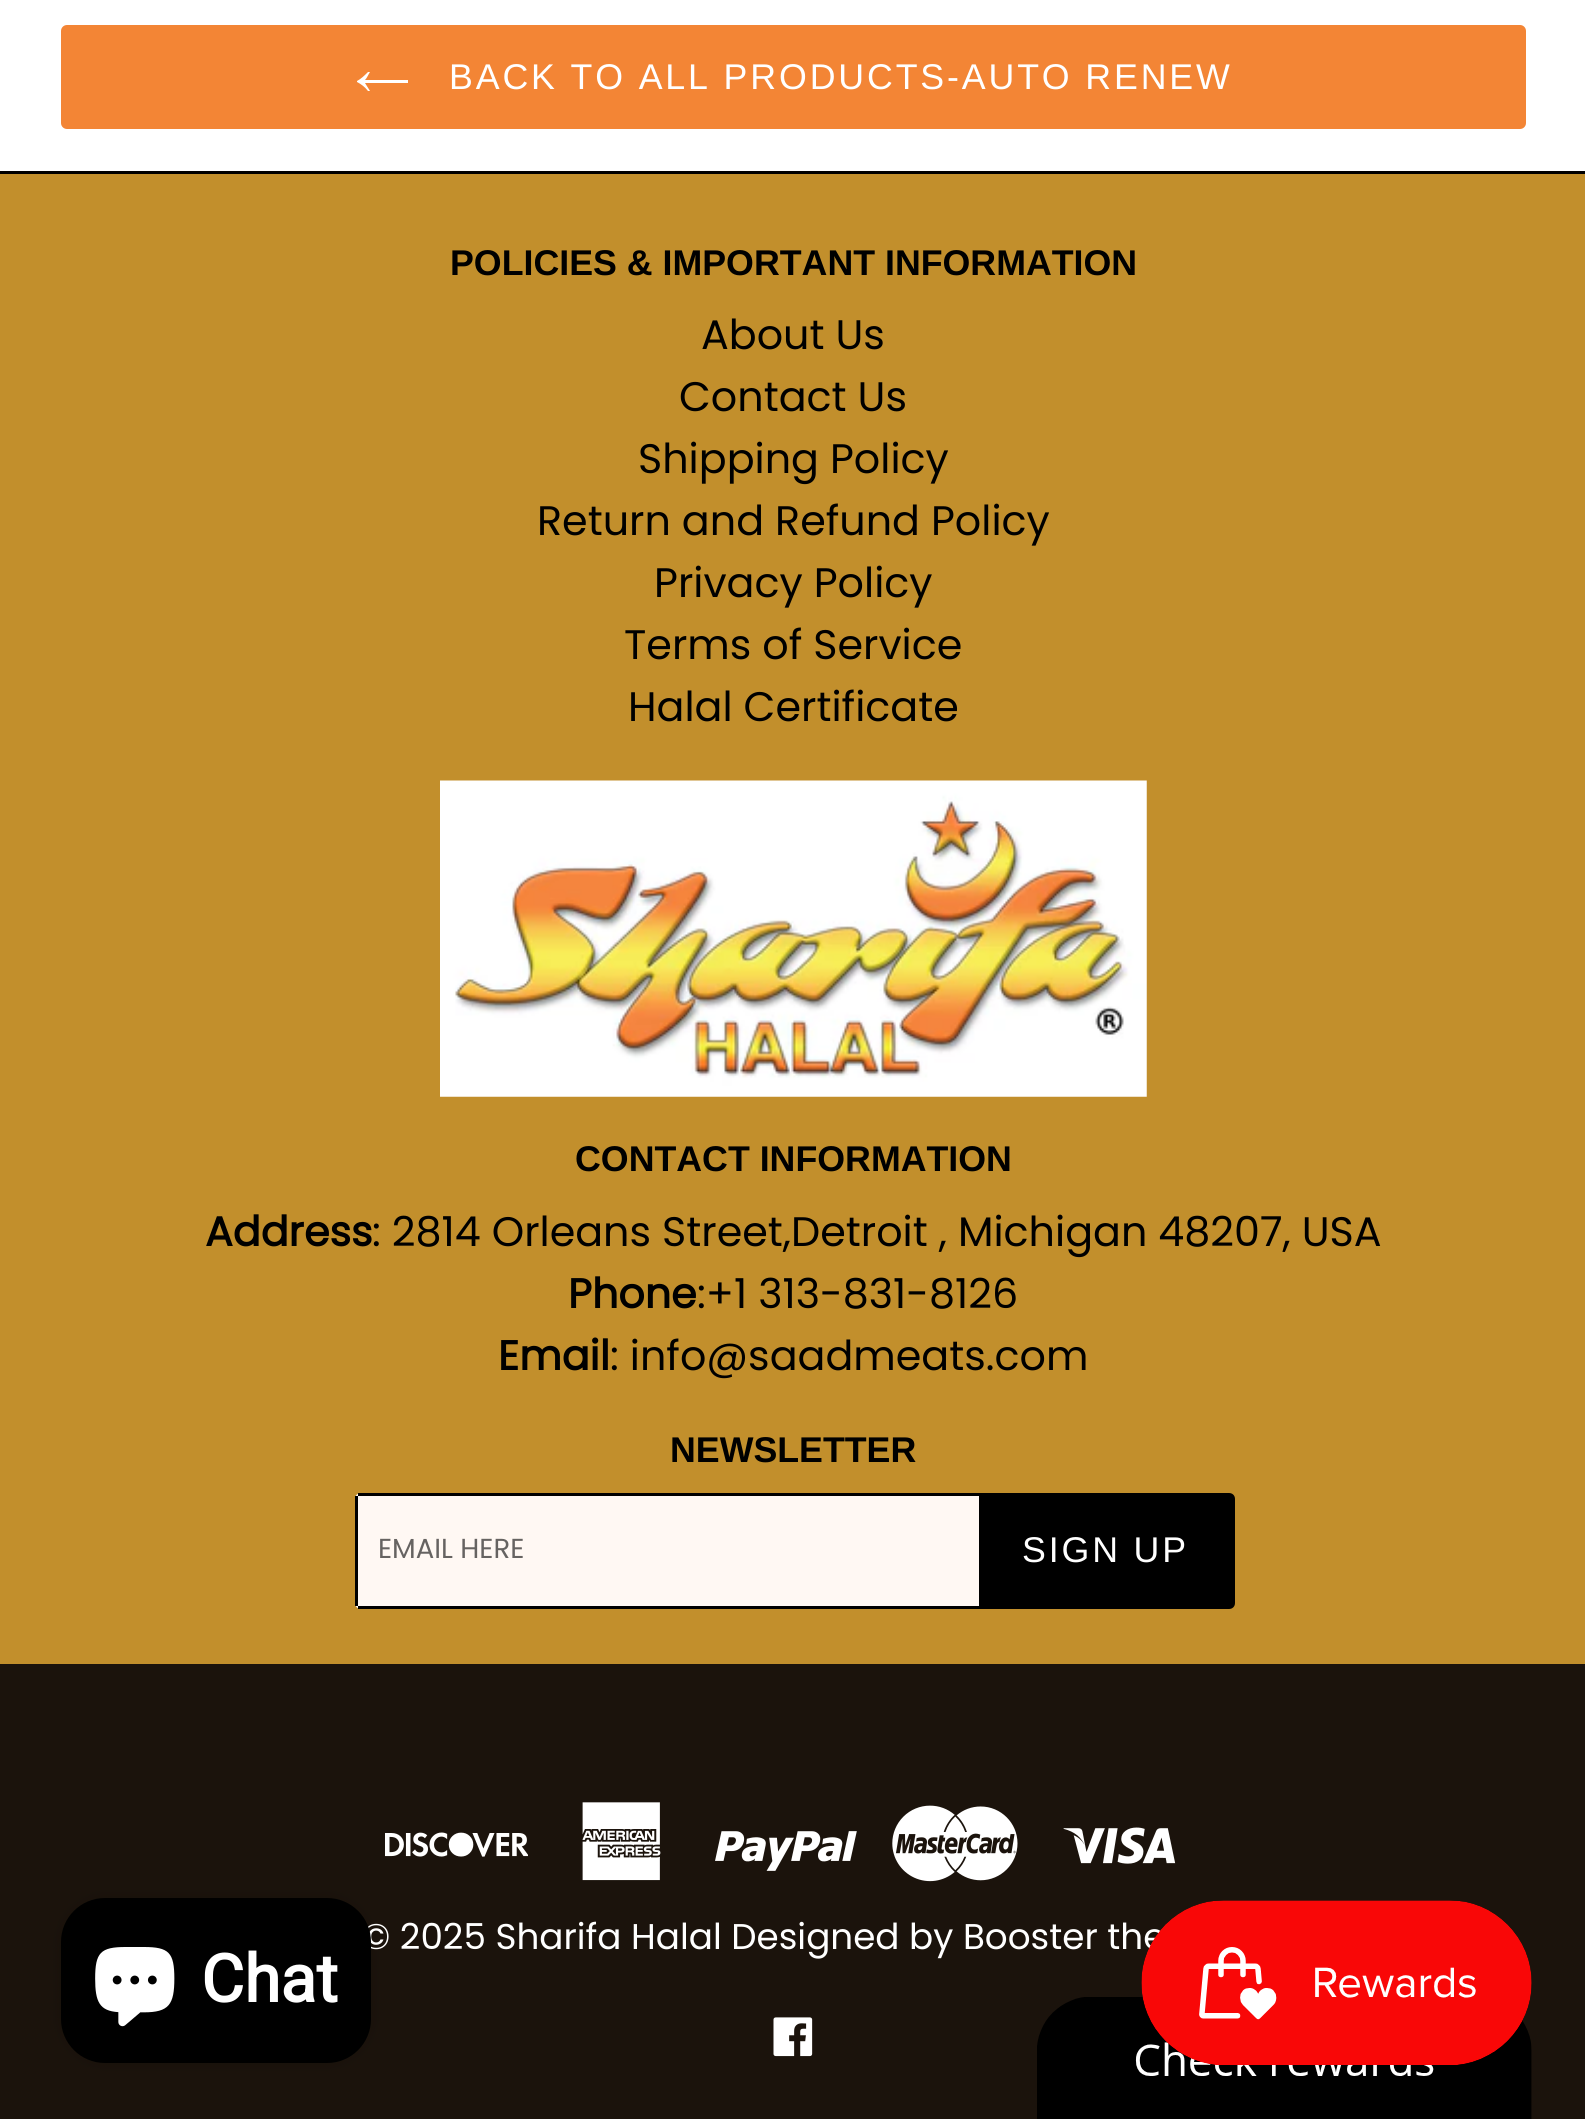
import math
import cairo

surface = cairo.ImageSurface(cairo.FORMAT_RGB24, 1585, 2119)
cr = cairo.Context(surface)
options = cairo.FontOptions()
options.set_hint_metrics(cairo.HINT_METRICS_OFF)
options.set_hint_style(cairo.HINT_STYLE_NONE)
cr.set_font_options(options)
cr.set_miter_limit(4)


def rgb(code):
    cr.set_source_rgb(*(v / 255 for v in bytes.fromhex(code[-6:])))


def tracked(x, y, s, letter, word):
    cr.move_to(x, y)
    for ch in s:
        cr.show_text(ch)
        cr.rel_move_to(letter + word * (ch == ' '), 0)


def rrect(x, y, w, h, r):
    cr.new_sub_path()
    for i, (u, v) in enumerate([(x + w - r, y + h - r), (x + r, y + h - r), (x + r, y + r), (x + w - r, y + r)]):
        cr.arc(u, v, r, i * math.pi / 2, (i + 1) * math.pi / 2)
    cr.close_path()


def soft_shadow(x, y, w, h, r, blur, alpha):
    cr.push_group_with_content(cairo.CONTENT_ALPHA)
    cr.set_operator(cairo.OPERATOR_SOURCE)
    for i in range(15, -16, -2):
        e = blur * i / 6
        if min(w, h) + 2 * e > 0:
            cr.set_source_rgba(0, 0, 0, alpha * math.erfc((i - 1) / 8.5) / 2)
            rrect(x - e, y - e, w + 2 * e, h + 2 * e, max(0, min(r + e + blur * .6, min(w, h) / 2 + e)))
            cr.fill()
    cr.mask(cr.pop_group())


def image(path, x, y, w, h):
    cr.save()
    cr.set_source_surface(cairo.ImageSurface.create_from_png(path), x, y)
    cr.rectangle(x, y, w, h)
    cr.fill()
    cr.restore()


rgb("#ffffff")
cr.paint()
rgb("#f38535")
rrect(61, 25, 1465, 104, 6)
cr.fill()
rgb("#ffffff")
cr.set_fill_rule(cairo.FILL_RULE_EVEN_ODD)
cr.new_path()
cr.move_to(368, 91)
cr.curve_to(365, 87, 361, 84, 357, 82)
cr.line_to(357, 81)
cr.curve_to(361, 79, 365, 75, 368, 72)
cr.line_to(370, 72)
cr.curve_to(368, 75, 367, 78, 365, 80)
cr.line_to(408, 80)
cr.line_to(408, 83)
cr.line_to(365, 83)
cr.line_to(370, 91)
cr.close_path()
cr.fill()
rgb("#c28f2c")
cr.rectangle(0, 174, 1585, 1490)
cr.fill()
rgb("#000000")
cr.rectangle(0, 171, 1585, 3)
cr.fill()
image("img/1.png", 440, 780, 707, 317)
rgb("#fff8f3")
cr.new_path()
cr.move_to(361, 1493)
cr.line_to(979, 1493)
cr.line_to(979, 1609)
cr.line_to(361, 1609)
cr.curve_to(357.5, 1609, 355, 1606.5, 355, 1603)
cr.line_to(355, 1499)
cr.curve_to(355, 1495.5, 357.5, 1493, 361, 1493)
cr.close_path()
cr.fill()
for x, y, w, h, color in [
    (358, 1493, 621, 3, "#000000"),
    (358, 1606, 621, 3, "#000000"),
    (355, 1496, 3, 110, "#000000"),
]:
    rgb(color)
    cr.rectangle(x, y, w, h)
    cr.fill()
cr.new_path()
cr.move_to(979, 1493)
cr.line_to(1229, 1493)
cr.curve_to(1232.5, 1493, 1235, 1495.5, 1235, 1499)
cr.line_to(1235, 1603)
cr.curve_to(1235, 1606.5, 1232.5, 1609, 1229, 1609)
cr.line_to(979, 1609)
cr.close_path()
cr.fill()
rgb("#1b130c")
cr.rectangle(0, 1664, 1585, 455)
cr.fill()
image("img/2.png", 385, 1832, 143, 25)
image("img/3.png", 582, 1802, 79, 79)
image("img/4.png", 715, 1831, 142, 40)
image("img/5.png", 892, 1805, 126, 77)
image("img/6.png", 1063, 1827, 113, 37)
image("img/7.png", 773, 2017, 40, 40)
rgb("#000000")
soft_shadow(61, 1898, 310, 165, 44, 7, 0.15)
image("img/10.png", 1037, 1997, 495, 122)
cr.select_font_face("Liberation Sans")
cr.set_font_size(35.75)
rgb("#ffffff")
tracked(449, 89, "BACK TO ALL PRODUCTS-AUTO RENEW", 2.85, 0)
cr.select_font_face("Liberation Sans", cairo.FONT_SLANT_NORMAL, cairo.FONT_WEIGHT_BOLD)
rgb("#000000")
cr.move_to(450, 275)
cr.show_text("POLICIES & IMPORTANT INFORMATION")
cr.select_font_face("Poppins")
cr.set_font_size(41.25)
for x, y, s in [
    (701, 349, "About Us"),
    (679, 411, "Contact Us"),
    (638, 473, "Shipping Policy"),
    (537, 535, "Return and Refund Policy"),
    (654, 597, "Privacy Policy"),
    (624, 659, "Terms of Service"),
    (628, 721, "Halal Certificate"),
]:
    cr.move_to(x, y)
    cr.show_text(s)
cr.select_font_face("Liberation Sans", cairo.FONT_SLANT_NORMAL, cairo.FONT_WEIGHT_BOLD)
cr.set_font_size(35.75)
cr.move_to(575, 1171)
cr.show_text("CONTACT INFORMATION")
cr.select_font_face("Poppins", cairo.FONT_SLANT_NORMAL, cairo.FONT_WEIGHT_BOLD)
cr.set_font_size(41.25)
cr.move_to(205, 1246)
cr.show_text("Address")
cr.select_font_face("Poppins")
cr.move_to(372, 1246)
cr.show_text(": 2814 Orleans Street,Detroit , Michigan 48207, USA")
cr.select_font_face("Poppins", cairo.FONT_SLANT_NORMAL, cairo.FONT_WEIGHT_BOLD)
cr.move_to(568, 1308)
cr.show_text("Phone")
cr.select_font_face("Poppins")
cr.move_to(697, 1308)
cr.show_text(":+1 313-831-8126")
cr.select_font_face("Poppins", cairo.FONT_SLANT_NORMAL, cairo.FONT_WEIGHT_BOLD)
cr.move_to(498, 1370)
cr.show_text("Email")
cr.select_font_face("Poppins")
cr.move_to(610, 1370)
cr.show_text(": info@saadmeats.com")
cr.select_font_face("Liberation Sans", cairo.FONT_SLANT_NORMAL, cairo.FONT_WEIGHT_BOLD)
cr.set_font_size(35.75)
cr.move_to(670, 1462)
cr.show_text("NEWSLETTER")
cr.select_font_face("Poppins")
cr.set_font_size(27.5)
rgb("#666361")
cr.move_to(378, 1558)
cr.show_text("EMAIL HERE")
cr.select_font_face("Liberation Sans")
cr.set_font_size(35.75)
rgb("#ffffff")
tracked(1022, 1562, "SIGN UP", 2.85, 0)
cr.select_font_face("Poppins")
cr.move_to(362, 1949)
cr.show_text("© 2025 Sharifa Halal Designed by Booster the")
rgb("#000000")
rrect(61, 1898, 310, 165, 44)
cr.fill()
image("img/8.png", 95, 1947, 80, 80)
cr.select_font_face("Roboto", cairo.FONT_SLANT_NORMAL, cairo.FONT_WEIGHT_BOLD)
cr.set_font_size(66)
rgb("#ffffff")
cr.move_to(201, 2002)
cr.show_text("Chat")
image("img/9.png", 1141, 1900, 391, 165)
surface.write_to_png("page.png")
